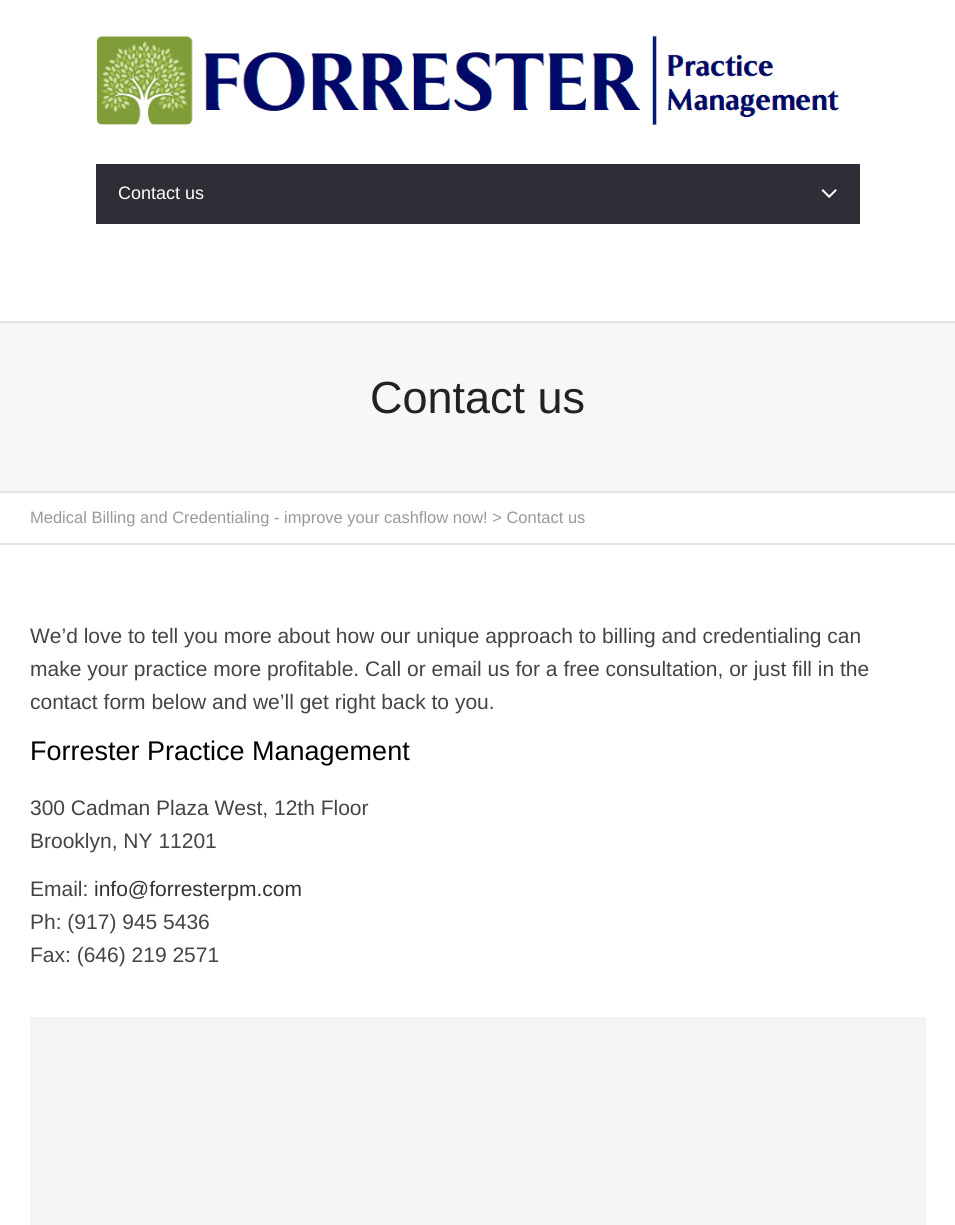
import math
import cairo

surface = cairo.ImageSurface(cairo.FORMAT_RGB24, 955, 1225)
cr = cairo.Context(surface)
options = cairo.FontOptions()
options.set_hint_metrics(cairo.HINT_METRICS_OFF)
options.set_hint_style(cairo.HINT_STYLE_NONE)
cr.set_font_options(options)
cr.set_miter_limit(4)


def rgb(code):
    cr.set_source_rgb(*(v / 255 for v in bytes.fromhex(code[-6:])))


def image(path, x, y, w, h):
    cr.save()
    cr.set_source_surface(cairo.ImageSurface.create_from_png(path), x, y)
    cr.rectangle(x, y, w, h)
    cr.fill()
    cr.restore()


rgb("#ffffff")
cr.paint()
rgb("#e4e4e4")
cr.rectangle(0, 321, 955, 2)
cr.fill()
image("img/1.png", 96, 35, 744, 90)
rgb("#2e2e36")
cr.rectangle(96, 164, 764, 60)
cr.fill()
image("img/2.png", 821, 189, 16, 9)
for x, y, w, h, color in [
    (0, 323, 955, 168, "#f7f7f7"),
    (0, 491, 955, 2, "#e4e4e4"),
    (0, 543, 955, 2, "#e4e4e4"),
    (30, 1017, 896, 208, "#f4f4f4"),
]:
    rgb(color)
    cr.rectangle(x, y, w, h)
    cr.fill()
cr.select_font_face("Liberation Sans")
cr.set_font_size(18)
rgb("#ffffff")
cr.move_to(118, 199)
cr.show_text("Contact us")
cr.set_font_size(45)
rgb("#222222")
cr.move_to(370, 413)
cr.show_text("Contact us")
cr.set_font_size(16.5)
rgb("#999999")
cr.move_to(30, 523)
cr.show_text("Medical Billing and Credentialing - improve your cashflow now! > Contact us")
cr.set_font_size(21)
rgb("#444444")
for x, y, s in [
    (30, 643, "We’d love to tell you more about how our unique approach to billing and credentialing can"),
    (30, 676, "make your practice more profitable. Call or email us for a free consultation, or just fill in the"),
    (30, 709, "contact form below and we’ll get right back to you."),
]:
    cr.move_to(x, y)
    cr.show_text(s)
cr.set_font_size(27)
rgb("#000000")
cr.move_to(30, 760)
cr.show_text("Forrester Practice Management")
cr.set_font_size(21)
rgb("#444444")
for x, y, s in [
    (30, 815, "300 Cadman Plaza West, 12th Floor"),
    (30, 848, "Brooklyn, NY 11201"),
    (30, 896, "Email:"),
]:
    cr.move_to(x, y)
    cr.show_text(s)
rgb("#333333")
cr.move_to(94, 896)
cr.show_text("info@forresterpm.com")
rgb("#444444")
cr.move_to(30, 929)
cr.show_text("Ph: (917) 945 5436")
cr.move_to(30, 962)
cr.show_text("Fax: (646) 219 2571")
surface.write_to_png("page.png")
